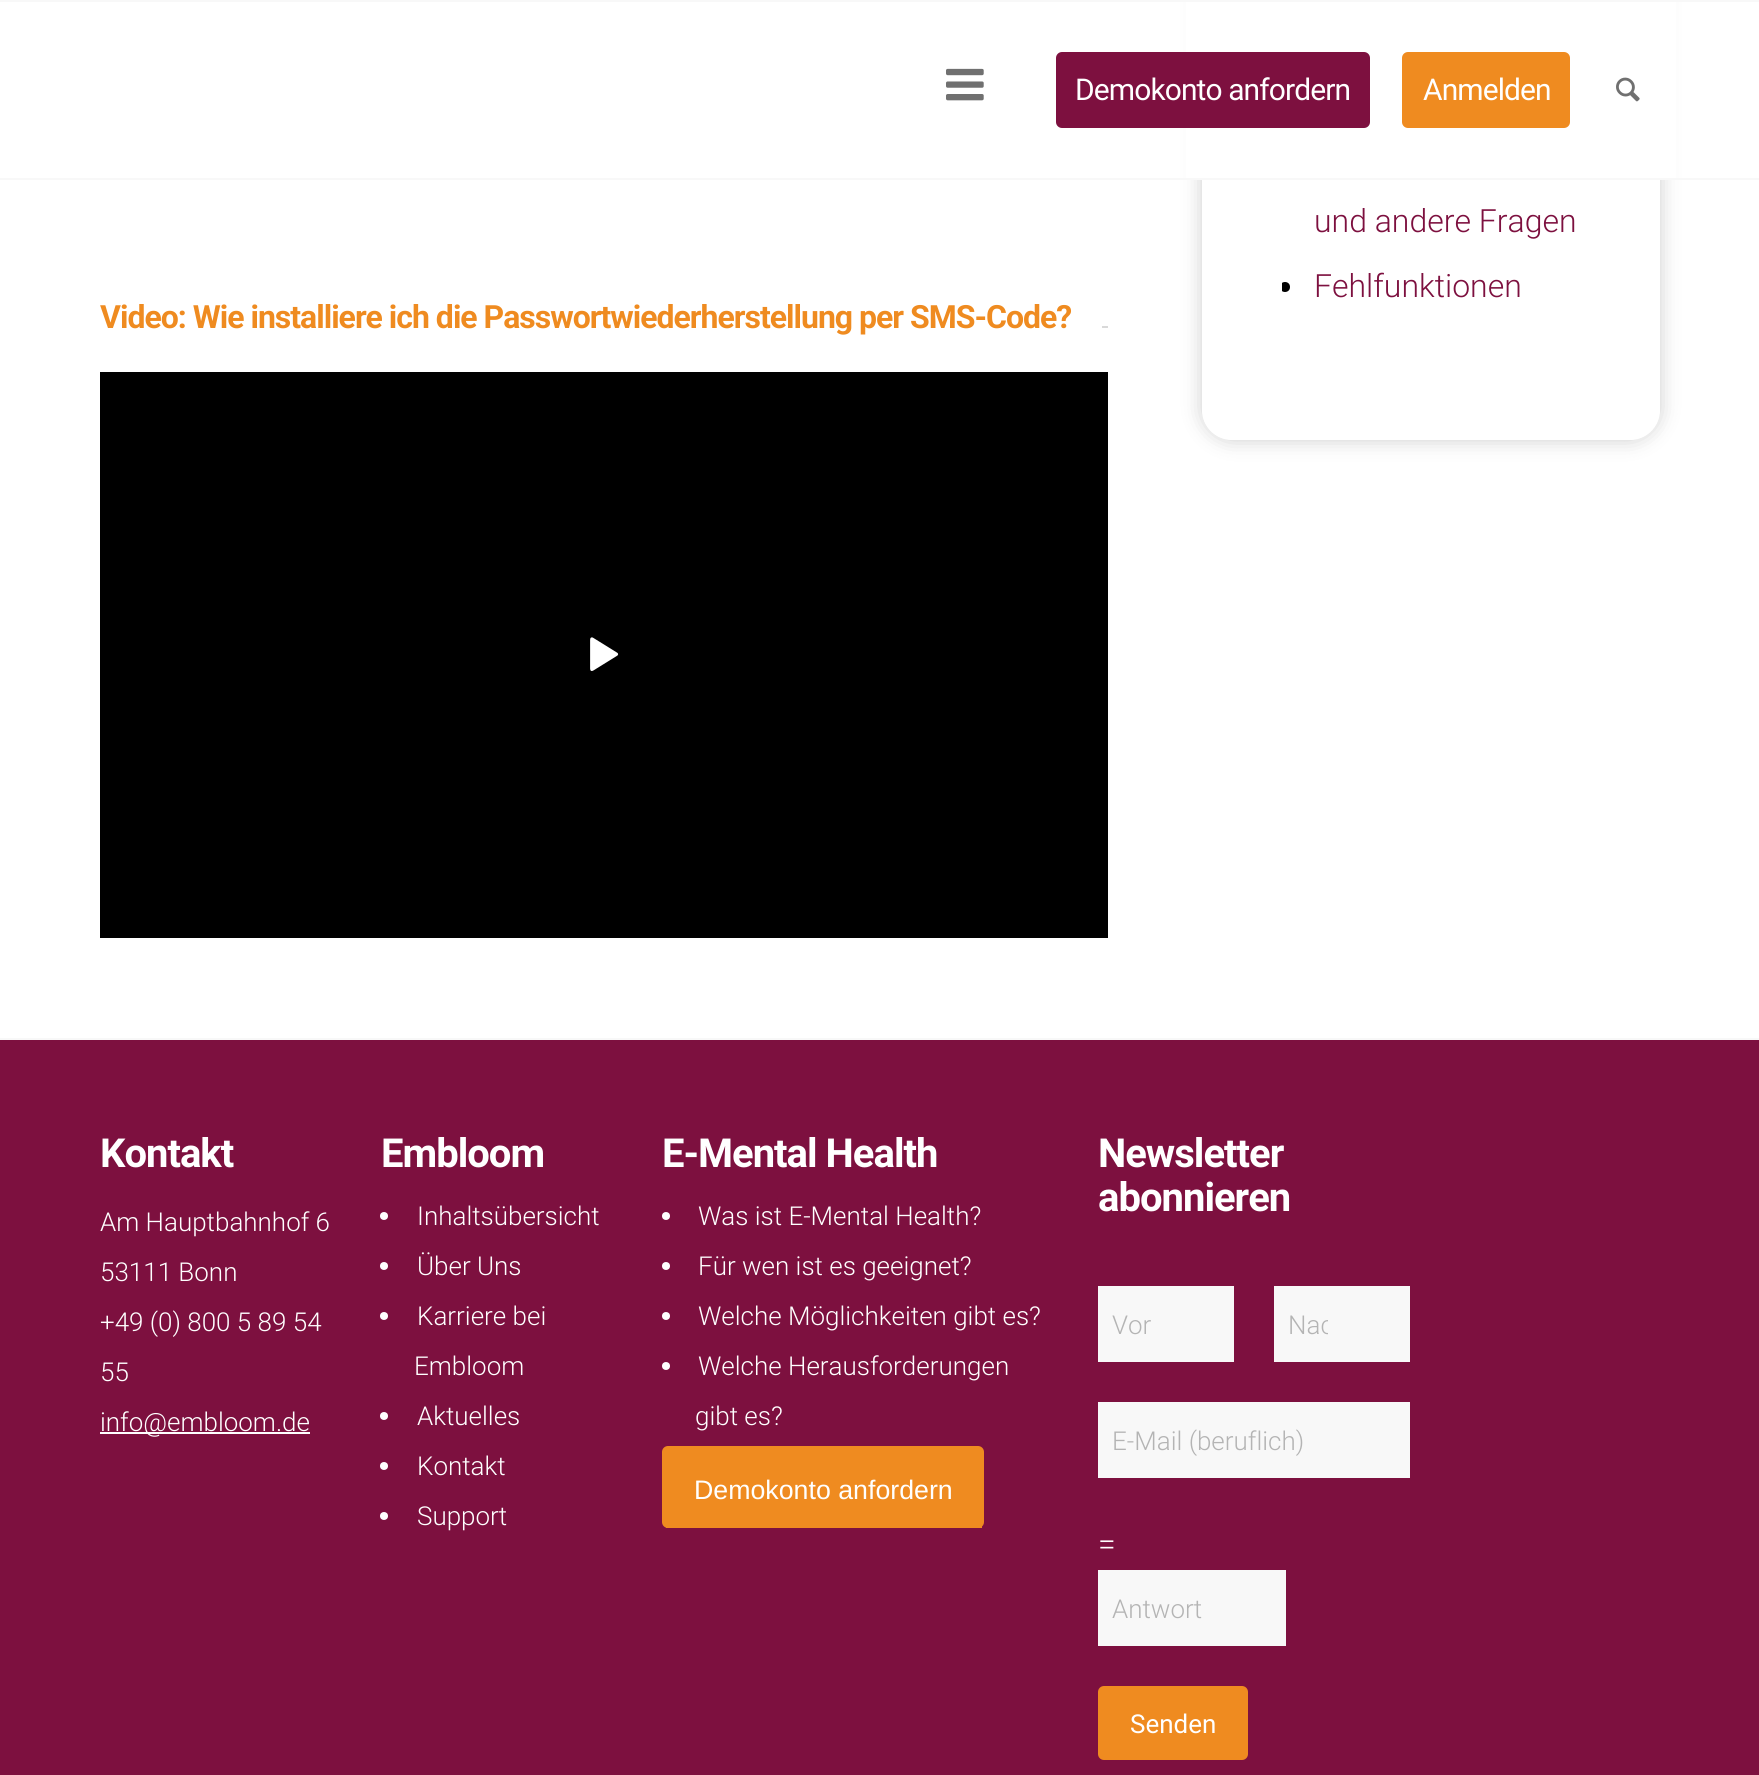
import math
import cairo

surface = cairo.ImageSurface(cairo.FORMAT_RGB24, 1759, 1775)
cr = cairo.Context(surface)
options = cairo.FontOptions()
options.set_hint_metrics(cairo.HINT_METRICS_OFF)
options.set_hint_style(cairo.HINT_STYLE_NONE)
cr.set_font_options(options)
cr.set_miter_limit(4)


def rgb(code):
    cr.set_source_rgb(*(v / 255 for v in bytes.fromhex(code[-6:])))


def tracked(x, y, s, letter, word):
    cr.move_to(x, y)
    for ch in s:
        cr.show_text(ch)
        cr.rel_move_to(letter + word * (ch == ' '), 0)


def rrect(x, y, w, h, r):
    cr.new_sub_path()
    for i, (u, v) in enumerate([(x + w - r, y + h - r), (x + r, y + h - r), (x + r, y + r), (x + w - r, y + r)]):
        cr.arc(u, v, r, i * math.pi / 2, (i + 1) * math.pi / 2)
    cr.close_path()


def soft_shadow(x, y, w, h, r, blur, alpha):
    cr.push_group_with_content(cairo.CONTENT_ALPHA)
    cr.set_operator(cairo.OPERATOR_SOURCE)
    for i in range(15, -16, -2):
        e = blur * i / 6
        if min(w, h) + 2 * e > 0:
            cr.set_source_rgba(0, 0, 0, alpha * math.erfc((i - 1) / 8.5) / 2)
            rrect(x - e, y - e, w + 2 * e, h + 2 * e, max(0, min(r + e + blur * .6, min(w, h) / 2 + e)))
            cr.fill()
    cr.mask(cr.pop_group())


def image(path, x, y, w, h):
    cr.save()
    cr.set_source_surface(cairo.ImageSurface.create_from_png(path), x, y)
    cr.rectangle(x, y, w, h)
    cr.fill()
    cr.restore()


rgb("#ffffff")
cr.paint()
cr.save()
cr.set_fill_rule(cairo.FILL_RULE_EVEN_ODD)
cr.new_path()
cr.move_to(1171, 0)
cr.line_to(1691, 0)
cr.line_to(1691, 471)
cr.line_to(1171, 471)
cr.close_path()
cr.move_to(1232, -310)
cr.line_to(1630, -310)
cr.curve_to(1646.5, -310, 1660, -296.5, 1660, -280)
cr.line_to(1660, 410)
cr.curve_to(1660, 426.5, 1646.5, 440, 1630, 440)
cr.line_to(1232, 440)
cr.curve_to(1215.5, 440, 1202, 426.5, 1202, 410)
cr.line_to(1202, -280)
cr.curve_to(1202, -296.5, 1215.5, -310, 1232, -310)
cr.close_path()
cr.clip()
rgb("#0a0a0a")
soft_shadow(1202, -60, 458, 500, 30, 10, 0.21)
cr.restore()
for x, y, w, h, color in [
    (1186, 2, 490, 176, "#ffffff"),
    (0, 0, 1759, 2, "#f8f8f8"),
    (0, 178, 1759, 2, "#f8f8f8"),
]:
    rgb(color)
    cr.rectangle(x, y, w, h)
    cr.fill()
image("img/1.png", 946, 68, 38, 33)
rgb("#7d103f")
rrect(1056, 52, 314, 76, 6)
cr.fill()
rgb("#ef8b20")
rrect(1402, 52, 168, 76, 6)
cr.fill()
image("img/2.png", 1616, 77, 24, 25)
cr.save()
cr.rectangle(1282, 0, 298, 320)
cr.clip()
rgb("#000000")
cr.arc(1285, 287, 5, 0, 2 * math.pi)
cr.fill()
cr.restore()
rgb("#d9d9d9")
cr.rectangle(1102, 326, 6, 2)
cr.fill()
rgb("#000000")
cr.rectangle(100, 372, 1008, 566)
cr.fill()
image("img/3.png", 590, 637, 29, 34)
for x, y, w, h, color in [
    (0, 1040, 1759, 735, "#7d103f"),
    (0, 1038, 1759, 2, "#f8f8f8"),
    (100, 1432, 210, 2, "#ffffff"),
]:
    rgb(color)
    cr.rectangle(x, y, w, h)
    cr.fill()
cr.arc(384, 1216, 4, 0, 2 * math.pi)
cr.fill()
cr.arc(384, 1266, 4, 0, 2 * math.pi)
cr.fill()
cr.arc(384, 1316, 4, 0, 2 * math.pi)
cr.fill()
cr.arc(384, 1416, 4, 0, 2 * math.pi)
cr.fill()
cr.arc(384, 1466, 4, 0, 2 * math.pi)
cr.fill()
cr.arc(384, 1516, 4, 0, 2 * math.pi)
cr.fill()
cr.arc(666, 1216, 4, 0, 2 * math.pi)
cr.fill()
cr.arc(666, 1266, 4, 0, 2 * math.pi)
cr.fill()
cr.arc(666, 1316, 4, 0, 2 * math.pi)
cr.fill()
cr.arc(666, 1366, 4, 0, 2 * math.pi)
cr.fill()
rgb("#ef8b20")
rrect(662, 1446, 322, 82, 6)
cr.fill()
for x, y, w, h, color in [
    (666, 1526, 316, 2, "#ef8b20"),
    (1098, 1286, 136, 76, "#f8f8f8"),
    (1274, 1286, 136, 76, "#f8f8f8"),
    (1098, 1402, 312, 76, "#f8f8f8"),
    (1098, 1570, 188, 76, "#f8f8f8"),
]:
    rgb(color)
    cr.rectangle(x, y, w, h)
    cr.fill()
rgb("#ef8b20")
rrect(1099, 1687, 148, 72, 5)
cr.fill_preserve()
cr.stroke()
cr.select_font_face("Roboto")
cr.set_font_size(30)
rgb("#ffffff")
tracked(1075, 100, "Demokonto anfordern", -0.9, 0)
tracked(1423, 100, "Anmelden", -0.9, 0)
cr.select_font_face("Roboto Light")
cr.set_font_size(32)
rgb("#7d103f")
cr.move_to(1314, 232)
cr.show_text("und andere Fragen")
cr.move_to(1314, 297)
cr.show_text("Fehlfunktionen")
cr.select_font_face("Roboto", cairo.FONT_SLANT_NORMAL, cairo.FONT_WEIGHT_BOLD)
rgb("#ef8b20")
tracked(100, 328, "Video: Wie installiere ich die Passwortwiederherstellung per SMS-Code?", -1, 0)
cr.select_font_face("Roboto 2", cairo.FONT_SLANT_NORMAL, cairo.FONT_WEIGHT_BOLD)
cr.set_font_size(40)
rgb("#ffffff")
tracked(100, 1167, "Kontakt", -1, 0)
cr.select_font_face("Roboto Light")
cr.set_font_size(26)
for x, y, s in [
    (100, 1231, "Am Hauptbahnhof 6"),
    (100, 1281, "53111 Bonn"),
    (100, 1331, "+49 (0) 800 5 89 54"),
    (100, 1381, "55"),
    (100, 1431, "info@embloom.de"),
]:
    cr.move_to(x, y)
    cr.show_text(s)
cr.select_font_face("Roboto 2", cairo.FONT_SLANT_NORMAL, cairo.FONT_WEIGHT_BOLD)
cr.set_font_size(40)
tracked(381, 1167, "Embloom", -1, 0)
cr.select_font_face("Roboto Light")
cr.set_font_size(26)
for x, y, s in [
    (417, 1225, "Inhaltsübersicht"),
    (417, 1275, "Über Uns"),
    (417, 1325, "Karriere bei"),
    (414, 1375, "Embloom"),
    (417, 1425, "Aktuelles"),
    (417, 1475, "Kontakt"),
    (417, 1525, "Support"),
]:
    cr.move_to(x, y)
    cr.show_text(s)
cr.select_font_face("Roboto 2", cairo.FONT_SLANT_NORMAL, cairo.FONT_WEIGHT_BOLD)
cr.set_font_size(40)
tracked(662, 1167, "E-Mental Health", -1, 0)
cr.select_font_face("Roboto Light")
cr.set_font_size(26)
for x, y, s in [
    (698, 1225, "Was ist E-Mental Health?"),
    (698, 1275, "Für wen ist es geeignet?"),
    (698, 1325, "Welche Möglichkeiten gibt es?"),
    (698, 1375, "Welche Herausforderungen"),
    (695, 1425, "gibt es?"),
]:
    cr.move_to(x, y)
    cr.show_text(s)
cr.select_font_face("Liberation Sans")
cr.set_font_size(26.75)
cr.move_to(694, 1499)
cr.show_text("Demokonto anfordern")
cr.select_font_face("Roboto 2", cairo.FONT_SLANT_NORMAL, cairo.FONT_WEIGHT_BOLD)
cr.set_font_size(40)
tracked(1098, 1167, "Newsletter", -1, 0)
tracked(1098, 1211, "abonnieren", -1, 0)
cr.select_font_face("Roboto Light")
cr.set_font_size(26)
rgb("#b4b4b4")
cr.move_to(1112, 1334)
cr.show_text("Vor")
cr.save()
cr.rectangle(1288, 1310, 40, 30)
cr.clip()
cr.move_to(1288, 1334)
cr.show_text("Nac")
cr.restore()
cr.move_to(1112, 1450)
cr.show_text("E-Mail (beruflich)")
cr.set_font_size(32)
rgb("#ffffff")
cr.move_to(1098, 1555)
cr.show_text("=")
cr.set_font_size(26)
rgb("#b4b4b4")
cr.move_to(1112, 1618)
cr.show_text("Antwort")
cr.select_font_face("Roboto")
rgb("#ffffff")
cr.move_to(1130, 1733)
cr.show_text("Senden")
surface.write_to_png("page.png")
